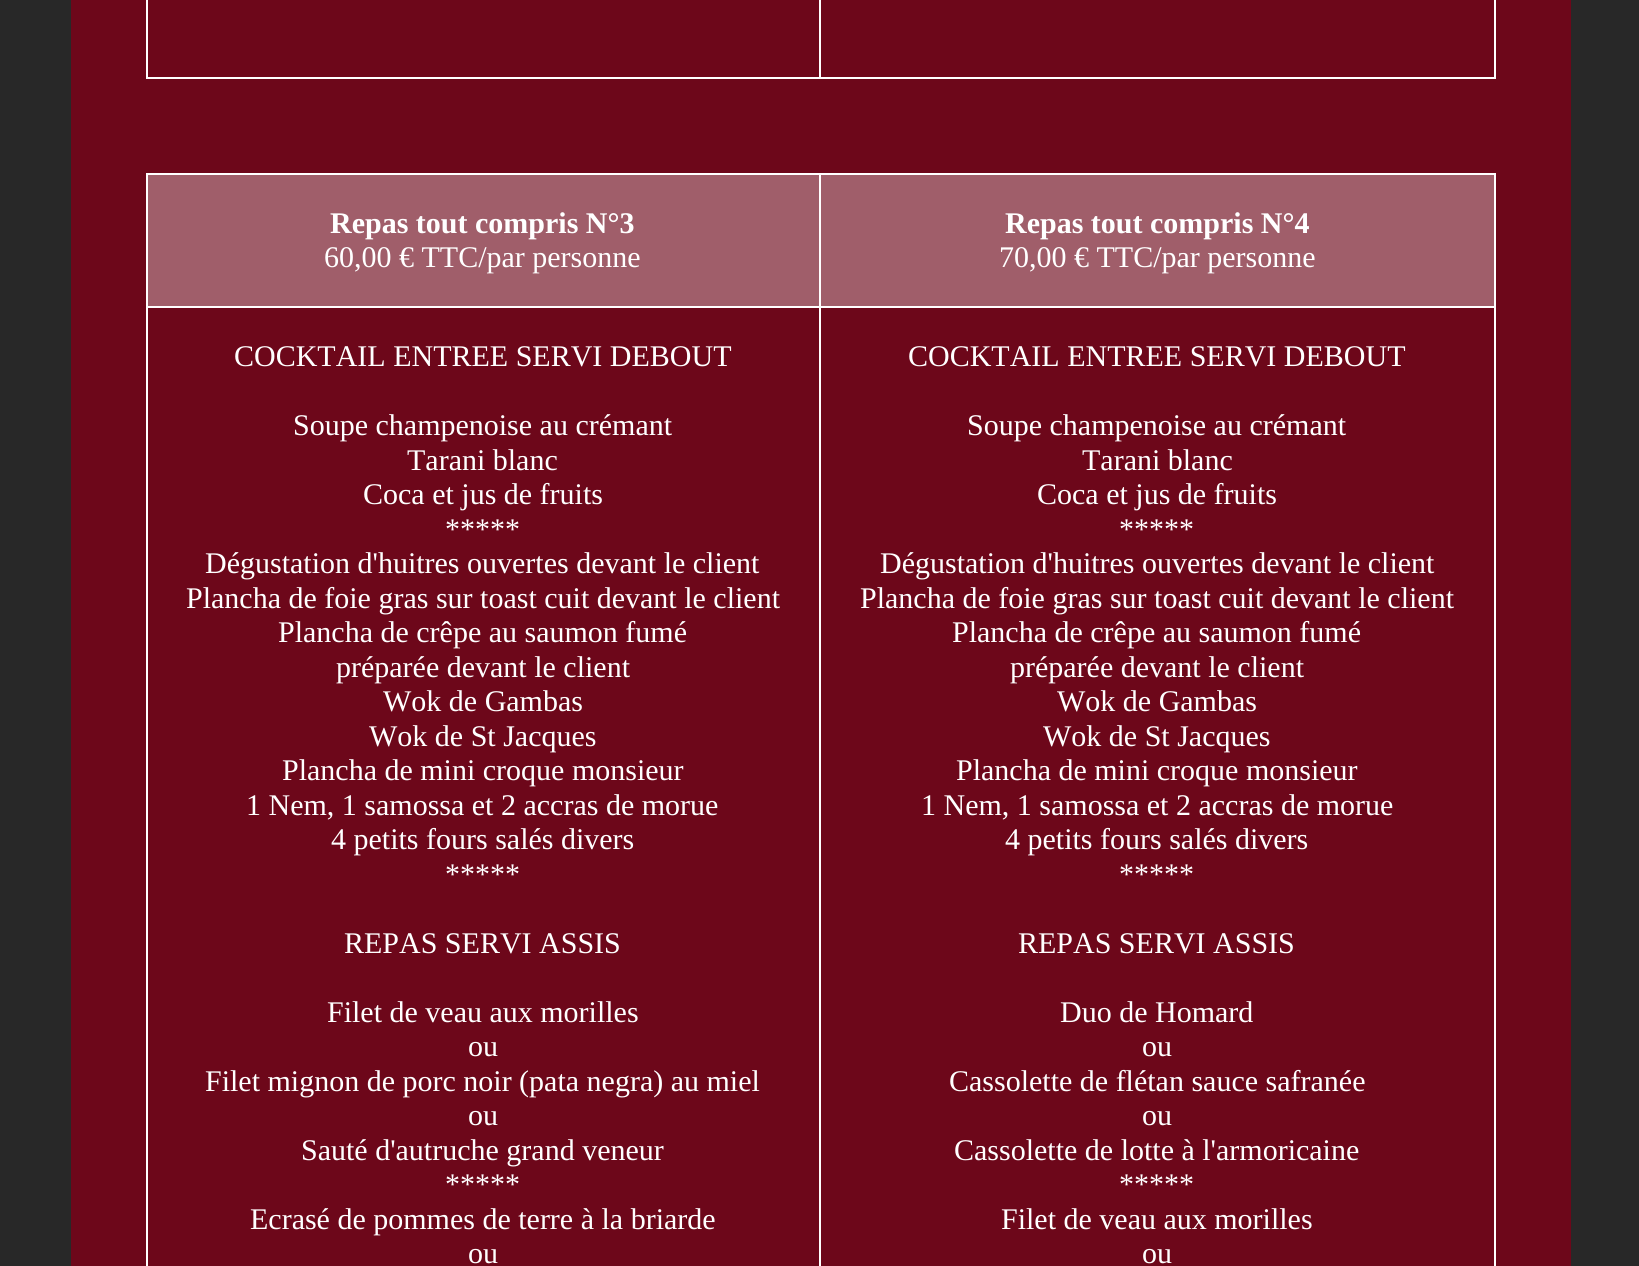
import math
import cairo

surface = cairo.ImageSurface(cairo.FORMAT_RGB24, 1639, 1266)
cr = cairo.Context(surface)
options = cairo.FontOptions()
options.set_hint_metrics(cairo.HINT_METRICS_OFF)
options.set_hint_style(cairo.HINT_STYLE_NONE)
cr.set_font_options(options)
cr.set_miter_limit(4)


def rgb(code):
    cr.set_source_rgb(*(v / 255 for v in bytes.fromhex(code[-6:])))


rgb("#282828")
cr.paint()
for x, y, w, h, color in [
    (71, 0, 1500, 1266, "#6d071a"),
    (1494, 0, 2, 78, "#ffffff"),
    (819, 77, 677, 2, "#ffffff"),
    (819, 0, 2, 78, "#ffffff"),
    (146, 77, 675, 2, "#ffffff"),
    (146, 0, 2, 78, "#ffffff"),
    (148, 175, 671, 131, "#a05e6a"),
    (819, 173, 677, 2, "#ffffff"),
    (819, 306, 677, 2, "#ffffff"),
    (819, 306, 2, 960, "#ffffff"),
    (146, 306, 675, 2, "#ffffff"),
    (819, 173, 2, 135, "#ffffff"),
    (146, 173, 675, 2, "#ffffff"),
    (146, 306, 2, 960, "#ffffff"),
    (146, 173, 2, 135, "#ffffff"),
    (821, 175, 673, 131, "#a05e6a"),
    (1494, 306, 2, 960, "#ffffff"),
    (1494, 173, 2, 135, "#ffffff"),
]:
    rgb(color)
    cr.rectangle(x, y, w, h)
    cr.fill()
cr.select_font_face("Liberation Serif", cairo.FONT_SLANT_NORMAL, cairo.FONT_WEIGHT_BOLD)
cr.set_font_size(30)
cr.move_to(330, 233)
cr.show_text("Repas tout compris N°3")
cr.select_font_face("Liberation Serif")
cr.move_to(324, 267)
cr.show_text("60,00 € TTC/par personne")
cr.select_font_face("Liberation Serif", cairo.FONT_SLANT_NORMAL, cairo.FONT_WEIGHT_BOLD)
cr.move_to(1005, 233)
cr.show_text("Repas tout compris N°4")
cr.select_font_face("Liberation Serif")
for x, y, s in [
    (999, 267, "70,00 € TTC/par personne"),
    (234, 366, "COCKTAIL ENTREE SERVI DEBOUT"),
    (293, 435, "Soupe champenoise au crémant"),
    (407, 470, "Tarani blanc"),
    (363, 504, "Coca et jus de fruits"),
    (445, 539, "*****"),
    (205, 573, "Dégustation d'huitres ouvertes devant le client"),
    (186, 608, "Plancha de foie gras sur toast cuit devant le client"),
    (278, 642, "Plancha de crêpe au saumon fumé"),
    (336, 677, "préparée devant le client"),
    (383, 711, "Wok de Gambas"),
    (369, 746, "Wok de St Jacques"),
    (282, 780, "Plancha de mini croque monsieur"),
    (246, 815, "1 Nem, 1 samossa et 2 accras de morue"),
    (331, 849, "4 petits fours salés divers"),
    (445, 884, "*****"),
    (344, 953, "REPAS SERVI ASSIS"),
    (327, 1022, "Filet de veau aux morilles"),
    (468, 1056, "ou"),
    (205, 1091, "Filet mignon de porc noir (pata negra) au miel"),
    (468, 1125, "ou"),
    (301, 1160, "Sauté d'autruche grand veneur"),
    (445, 1194, "*****"),
    (250, 1229, "Ecrasé de pommes de terre à la briarde"),
    (468, 1263, "ou"),
    (908, 366, "COCKTAIL ENTREE SERVI DEBOUT"),
    (967, 435, "Soupe champenoise au crémant"),
    (1082, 470, "Tarani blanc"),
    (1037, 504, "Coca et jus de fruits"),
    (1119, 539, "*****"),
    (880, 573, "Dégustation d'huitres ouvertes devant le client"),
    (860, 608, "Plancha de foie gras sur toast cuit devant le client"),
    (952, 642, "Plancha de crêpe au saumon fumé"),
    (1010, 677, "préparée devant le client"),
    (1057, 711, "Wok de Gambas"),
    (1043, 746, "Wok de St Jacques"),
    (956, 780, "Plancha de mini croque monsieur"),
    (921, 815, "1 Nem, 1 samossa et 2 accras de morue"),
    (1005, 849, "4 petits fours salés divers"),
    (1119, 884, "*****"),
    (1018, 953, "REPAS SERVI ASSIS"),
    (1060, 1022, "Duo de Homard"),
    (1142, 1056, "ou"),
    (949, 1091, "Cassolette de flétan sauce safranée"),
    (1142, 1125, "ou"),
    (954, 1160, "Cassolette de lotte à l'armoricaine"),
    (1119, 1194, "*****"),
    (1001, 1229, "Filet de veau aux morilles"),
    (1142, 1263, "ou"),
]:
    cr.move_to(x, y)
    cr.show_text(s)
surface.write_to_png("page.png")
